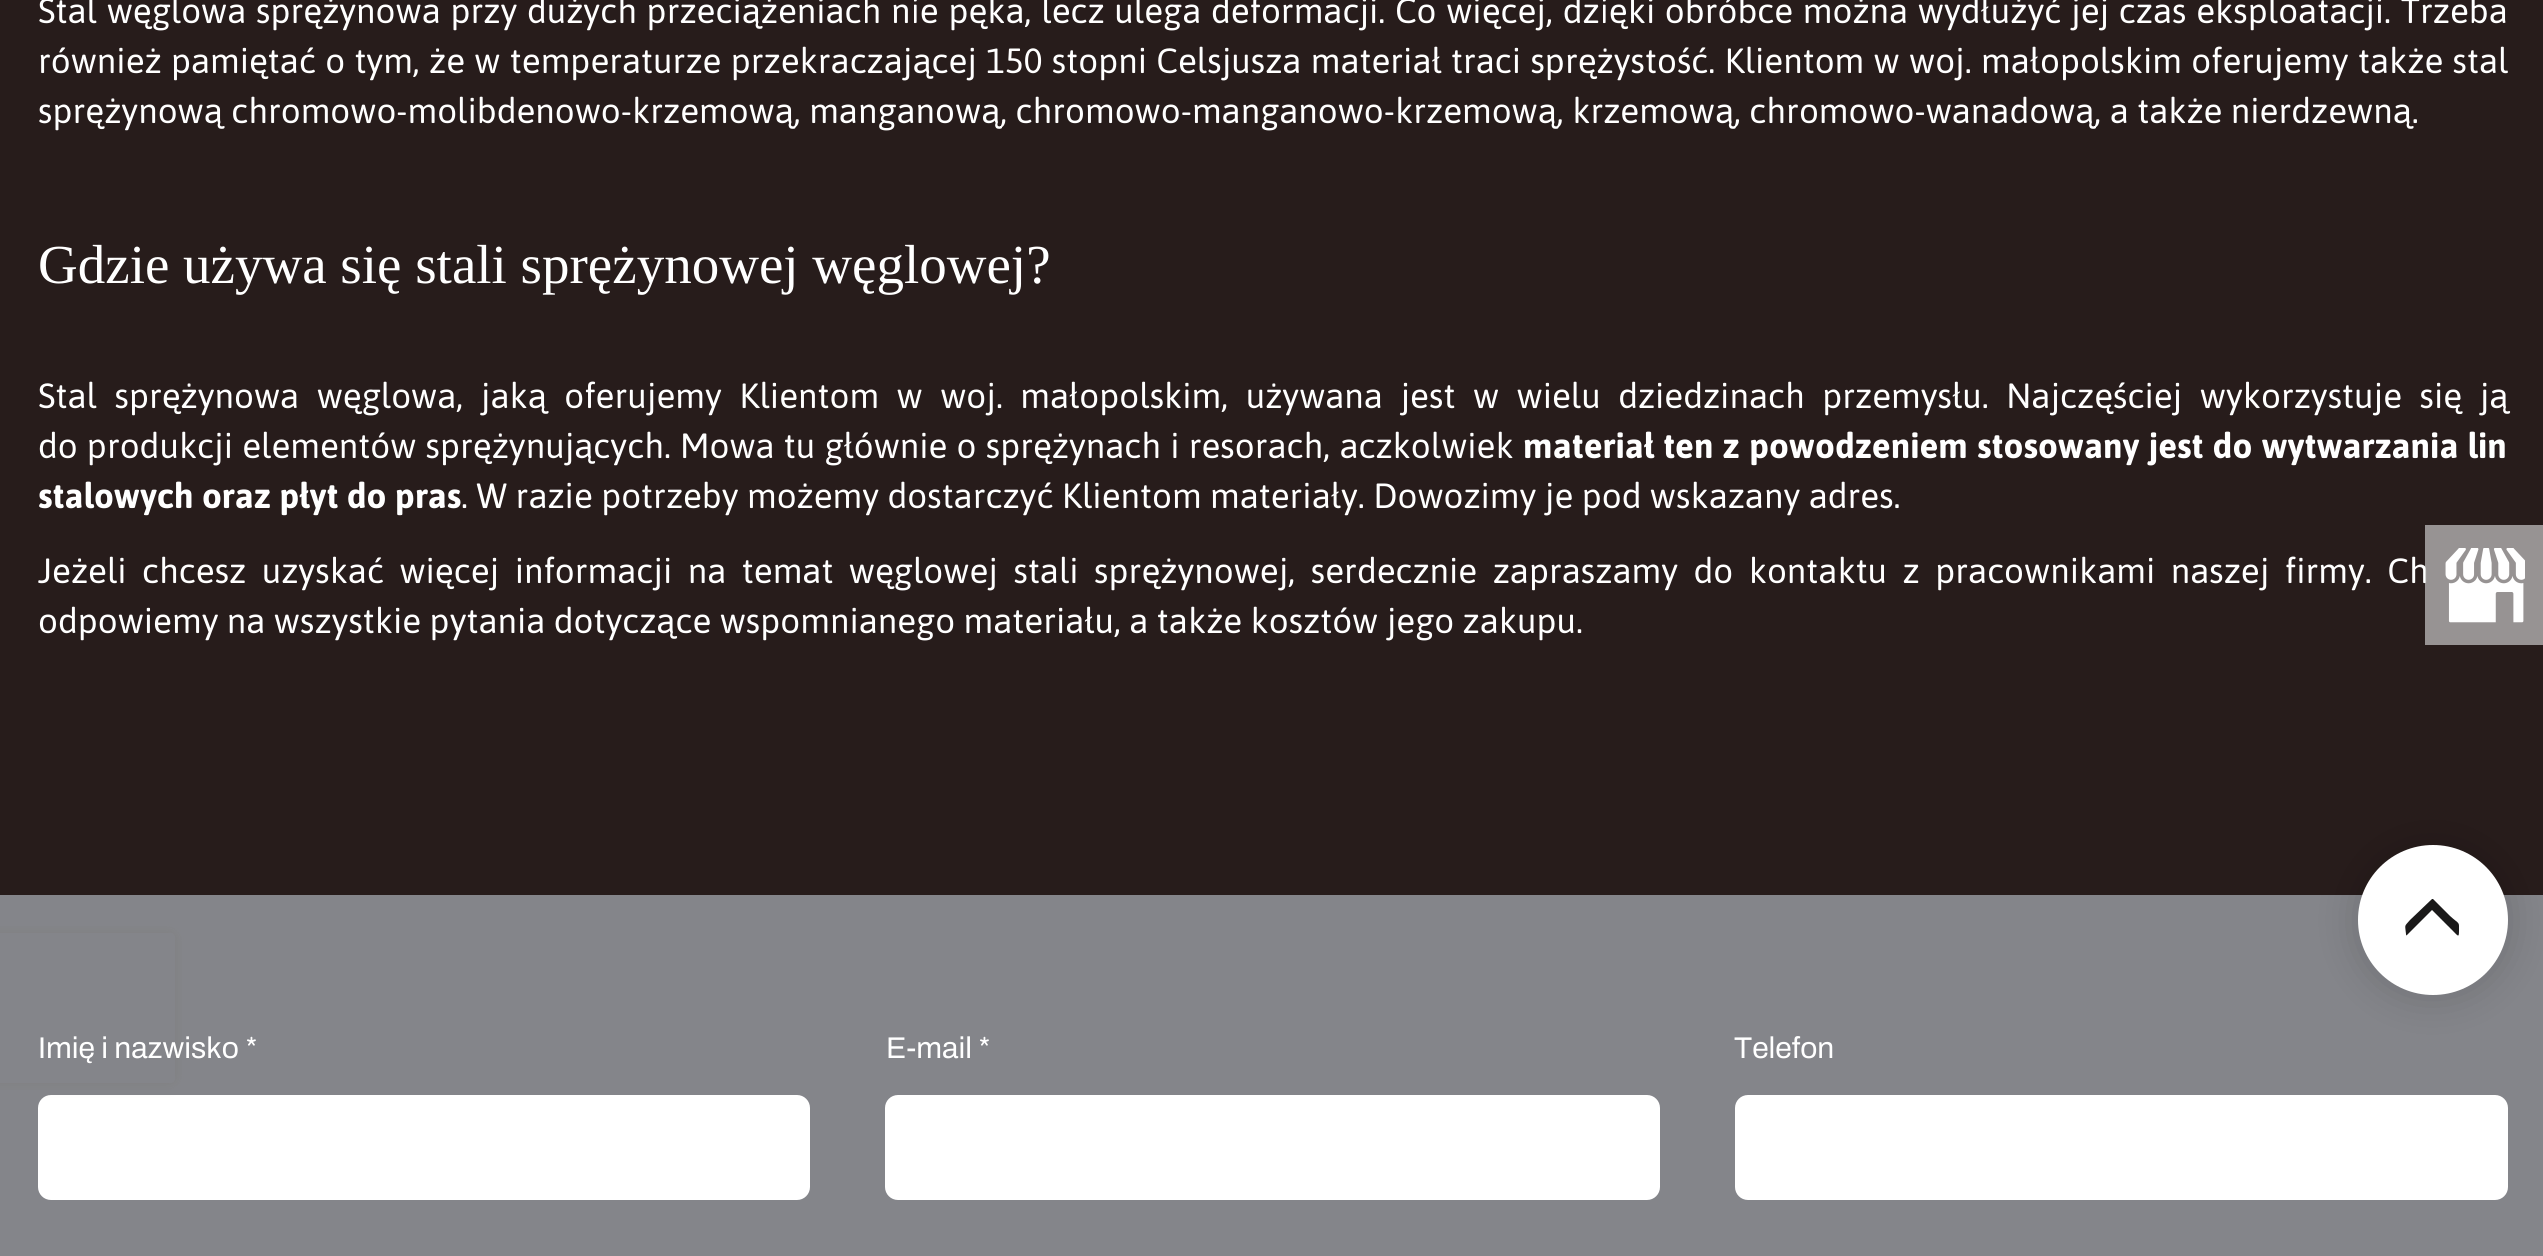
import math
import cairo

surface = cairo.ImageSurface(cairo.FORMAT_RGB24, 2543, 1256)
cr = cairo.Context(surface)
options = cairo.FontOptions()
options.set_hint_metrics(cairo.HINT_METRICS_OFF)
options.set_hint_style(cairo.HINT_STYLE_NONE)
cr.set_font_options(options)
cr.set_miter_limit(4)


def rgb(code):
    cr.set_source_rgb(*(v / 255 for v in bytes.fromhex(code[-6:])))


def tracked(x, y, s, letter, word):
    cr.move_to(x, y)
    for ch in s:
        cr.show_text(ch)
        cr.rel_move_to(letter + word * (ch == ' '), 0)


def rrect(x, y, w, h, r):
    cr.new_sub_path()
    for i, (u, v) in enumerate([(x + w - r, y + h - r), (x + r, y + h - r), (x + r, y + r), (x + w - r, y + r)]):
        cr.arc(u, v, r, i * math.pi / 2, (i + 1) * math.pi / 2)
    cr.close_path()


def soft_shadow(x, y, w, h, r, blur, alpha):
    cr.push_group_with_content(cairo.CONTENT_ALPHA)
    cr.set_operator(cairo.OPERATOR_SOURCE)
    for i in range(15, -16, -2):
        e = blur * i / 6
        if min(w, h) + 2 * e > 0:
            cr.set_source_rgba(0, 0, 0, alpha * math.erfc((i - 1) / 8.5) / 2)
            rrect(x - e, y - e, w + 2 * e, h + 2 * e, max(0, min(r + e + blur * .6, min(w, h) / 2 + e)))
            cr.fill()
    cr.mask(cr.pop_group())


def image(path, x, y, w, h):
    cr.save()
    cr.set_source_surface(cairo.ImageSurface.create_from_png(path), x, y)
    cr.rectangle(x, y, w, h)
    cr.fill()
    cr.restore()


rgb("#271c1b")
cr.paint()
rgb("#84858a")
cr.rectangle(0, 895, 2543, 361)
cr.fill()
rgb("#ffffff")
rrect(39.5, 1096.5, 769, 102, 11.5)
cr.fill_preserve()
cr.set_line_width(3)
cr.stroke()
cr.save()
cr.set_fill_rule(cairo.FILL_RULE_EVEN_ODD)
cr.new_path()
cr.move_to(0, 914)
cr.line_to(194, 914)
cr.line_to(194, 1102)
cr.line_to(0, 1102)
cr.close_path()
cr.move_to(-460, 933)
cr.line_to(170, 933)
cr.curve_to(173, 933, 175, 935, 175, 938)
cr.line_to(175, 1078)
cr.curve_to(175, 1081, 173, 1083, 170, 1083)
cr.line_to(-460, 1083)
cr.curve_to(-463, 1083, -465, 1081, -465, 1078)
cr.line_to(-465, 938)
cr.curve_to(-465, 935, -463, 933, -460, 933)
cr.close_path()
cr.clip()
rgb("#808080")
soft_shadow(-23, 933, 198, 150, 5, 6, 1)
cr.restore()
rrect(886.5, 1096.5, 772, 102, 11.5)
cr.fill_preserve()
cr.stroke()
rrect(1736.5, 1096.5, 770, 102, 11.5)
cr.fill_preserve()
cr.stroke()
rgb("#000000")
soft_shadow(2355, 843, 155, 155, 77.5, 20, 0.15)
rgb("#ffffff")
cr.arc(2433, 920, 75, 0, 2 * math.pi)
cr.fill()
rgb("#1a1919")
cr.new_path()
cr.move_to(2433, 899)
cr.line_to(2450, 916)
cr.curve_to(2460, 925, 2459, 921, 2459, 931)
cr.curve_to(2459, 938, 2458, 936, 2453, 931)
cr.line_to(2432, 910)
cr.line_to(2407, 935)
cr.curve_to(2406, 936, 2406, 935, 2406, 934)
cr.curve_to(2405, 924, 2404, 927, 2410, 920)
cr.line_to(2432, 899)
cr.close_path()
cr.fill()
cr.select_font_face("Asap")
cr.set_font_size(35)
rgb("#ffffff")
tracked(38, 23, "Stal węglowa sprężynowa przy dużych przeciążeniach nie pęka, lecz ulega deformacji. Co więcej, dzięki obróbce można wydłużyć jej czas eksploatacji. Trzeba", 0, 1.3)
tracked(38, 73, "również pamiętać o tym, że w temperaturze przekraczającej 150 stopni Celsjusza materiał traci sprężystość. Klientom w woj. małopolskim oferujemy także stal", 0, 0.9)
cr.move_to(38, 123)
cr.show_text("sprężynową chromowo-molibdenowo-krzemową, manganową, chromowo-manganowo-krzemową, krzemową, chromowo-wanadową, a także nierdzewną.")
cr.select_font_face("Tinos")
cr.set_font_size(55)
cr.move_to(38, 283)
cr.show_text("Gdzie używa się stali sprężynowej węglowej?")
cr.select_font_face("Asap")
cr.set_font_size(35)
tracked(38, 408, "Stal sprężynowa węglowa, jaką oferujemy Klientom w woj. małopolskim, używana jest w wielu dziedzinach przemysłu. Najczęściej wykorzystuje się ją", 0, 9.1)
tracked(38, 458, "do produkcji elementów sprężynujących. Mowa tu głównie o sprężynach i resorach, aczkolwiek", 0, 0.75)
cr.select_font_face("Asap", cairo.FONT_SLANT_NORMAL, cairo.FONT_WEIGHT_BOLD)
tracked(1523, 458, "materiał ten z powodzeniem stosowany jest do wytwarzania lin", 0, 0.75)
cr.move_to(38, 508)
cr.show_text("stalowych oraz płyt do pras")
cr.select_font_face("Asap")
cr.move_to(461, 508)
cr.show_text(". W razie potrzeby możemy dostarczyć Klientom materiały. Dowozimy je pod wskazany adres.")
tracked(38, 583, "Jeżeli chcesz uzyskać więcej informacji na temat węglowej stali sprężynowej, serdecznie zapraszamy do kontaktu z pracownikami naszej firmy. Ch", 0, 7.1)
cr.move_to(38, 633)
cr.show_text("odpowiemy na wszystkie pytania dotyczące wspomnianego materiału, a także kosztów jego zakupu.")
cr.select_font_face("Archivo")
cr.set_font_size(30)
cr.move_to(38, 1058)
cr.show_text("Imię i nazwisko")
cr.select_font_face("Asap", cairo.FONT_SLANT_NORMAL, cairo.FONT_WEIGHT_BOLD)
cr.move_to(246, 1058)
cr.show_text("*")
cr.select_font_face("Archivo")
cr.move_to(886, 1058)
cr.show_text("E-mail")
cr.select_font_face("Asap", cairo.FONT_SLANT_NORMAL, cairo.FONT_WEIGHT_BOLD)
cr.move_to(979, 1058)
cr.show_text("*")
cr.select_font_face("Archivo")
cr.move_to(1734, 1058)
cr.show_text("Telefon")
cr.set_source_rgba(0.78, 0.78, 0.78, 0.7)
cr.rectangle(2425, 525, 118, 120)
cr.fill()
image("img/1.png", 2445, 548, 80, 75)
surface.write_to_png("page.png")
